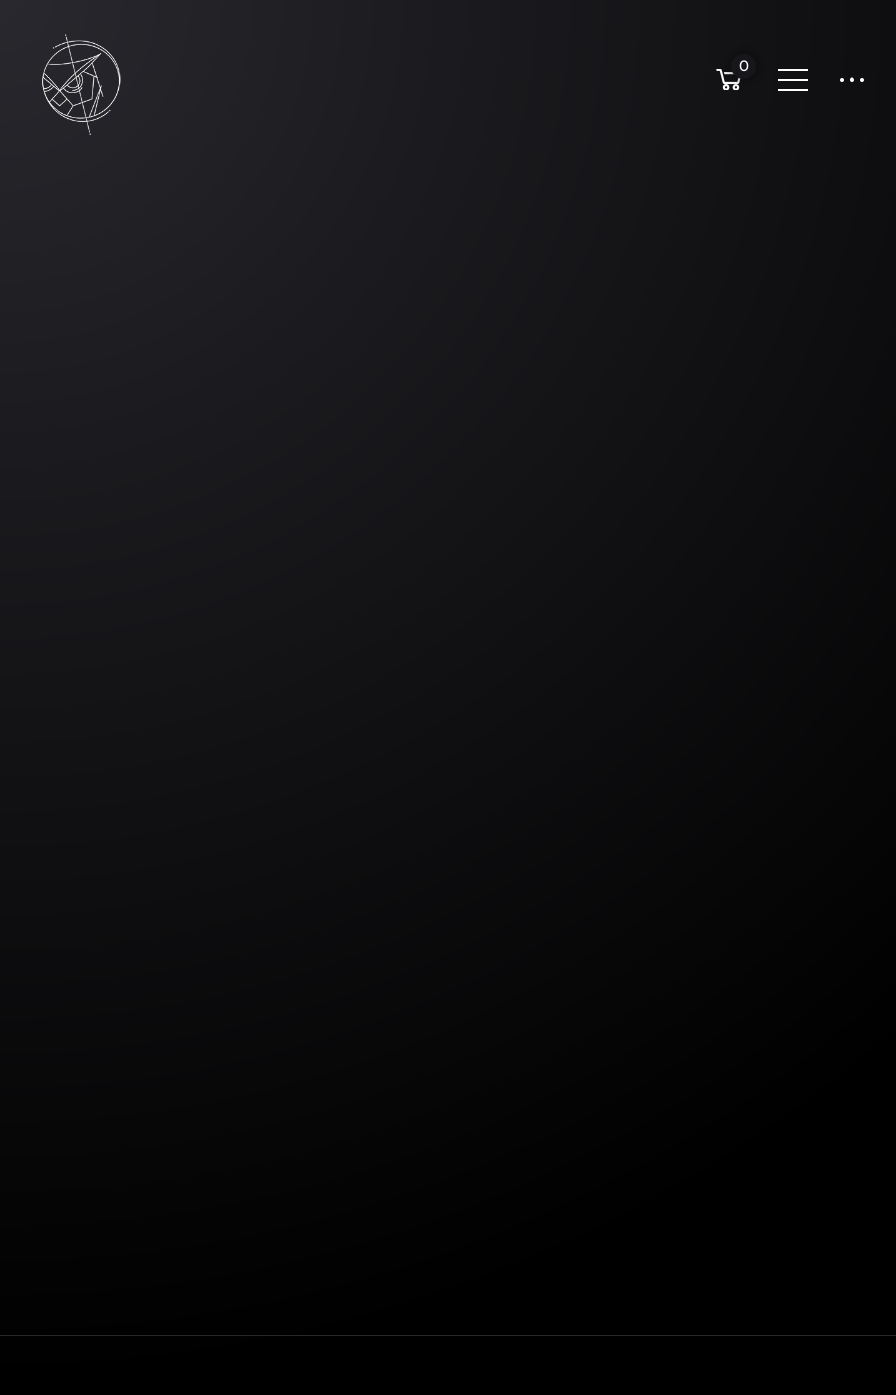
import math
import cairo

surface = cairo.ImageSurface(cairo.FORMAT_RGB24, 896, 1395)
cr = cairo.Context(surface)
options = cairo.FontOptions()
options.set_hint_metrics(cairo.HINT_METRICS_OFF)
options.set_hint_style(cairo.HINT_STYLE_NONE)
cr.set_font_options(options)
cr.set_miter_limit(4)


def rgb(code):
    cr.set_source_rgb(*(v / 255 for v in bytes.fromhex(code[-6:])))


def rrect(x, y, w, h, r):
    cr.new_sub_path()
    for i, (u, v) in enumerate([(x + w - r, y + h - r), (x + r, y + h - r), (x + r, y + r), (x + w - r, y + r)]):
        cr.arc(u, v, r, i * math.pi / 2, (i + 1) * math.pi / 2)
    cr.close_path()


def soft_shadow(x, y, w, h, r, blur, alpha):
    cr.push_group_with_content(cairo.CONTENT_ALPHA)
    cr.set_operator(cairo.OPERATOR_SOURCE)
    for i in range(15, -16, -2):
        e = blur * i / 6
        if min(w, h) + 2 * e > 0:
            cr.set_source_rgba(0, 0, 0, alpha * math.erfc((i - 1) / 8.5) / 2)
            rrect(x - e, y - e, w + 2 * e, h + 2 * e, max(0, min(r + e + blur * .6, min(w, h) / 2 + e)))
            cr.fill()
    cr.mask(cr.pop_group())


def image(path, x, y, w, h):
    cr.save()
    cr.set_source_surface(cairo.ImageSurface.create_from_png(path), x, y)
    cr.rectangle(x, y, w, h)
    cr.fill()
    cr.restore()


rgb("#ffffff")
cr.paint()
gradient = cairo.RadialGradient(0, 0, 0, 0, 0, 1973)
gradient.add_color_stop_rgba(0, 0.157, 0.157, 0.18, 1)
gradient.add_color_stop_rgba(0.7, 0, 0, 0, 1)
cr.set_source(gradient)
cr.rectangle(0, 0, 896, 1395)
cr.fill()
image("img/1.png", 42, 34, 79, 101)
image("img/2.png", 716, 69, 25, 21)
rgb("#000000")
soft_shadow(731, 54, 25, 25, 12.5, 6, 0.45)
rgb("#17171b")
cr.arc(743.5, 66.5, 12.5, 0, 2 * math.pi)
cr.fill()
for x, y, w, h, color in [
    (778, 69, 30, 2, "#ffffff"),
    (778, 79, 30, 2, "#ffffff"),
    (778, 89, 30, 2, "#ffffff"),
]:
    rgb(color)
    cr.rectangle(x, y, w, h)
    cr.fill()
cr.arc(842, 80, 2, 0, 2 * math.pi)
cr.fill()
cr.arc(852, 80, 2, 0, 2 * math.pi)
cr.fill()
cr.new_path()
cr.move_to(850, 79)
cr.line_to(852, 77)
cr.line_to(853.5, 79)
cr.line_to(852, 80.5)
cr.close_path()
cr.fill()
cr.arc(862, 80, 2, 0, 2 * math.pi)
cr.fill()
rgb("#272727")
cr.rectangle(0, 1335, 896, 1)
cr.fill()
cr.select_font_face("Montserrat Medium")
cr.set_font_size(15)
rgb("#ffffff")
cr.move_to(739, 71)
cr.show_text("0")
surface.write_to_png("page.png")
